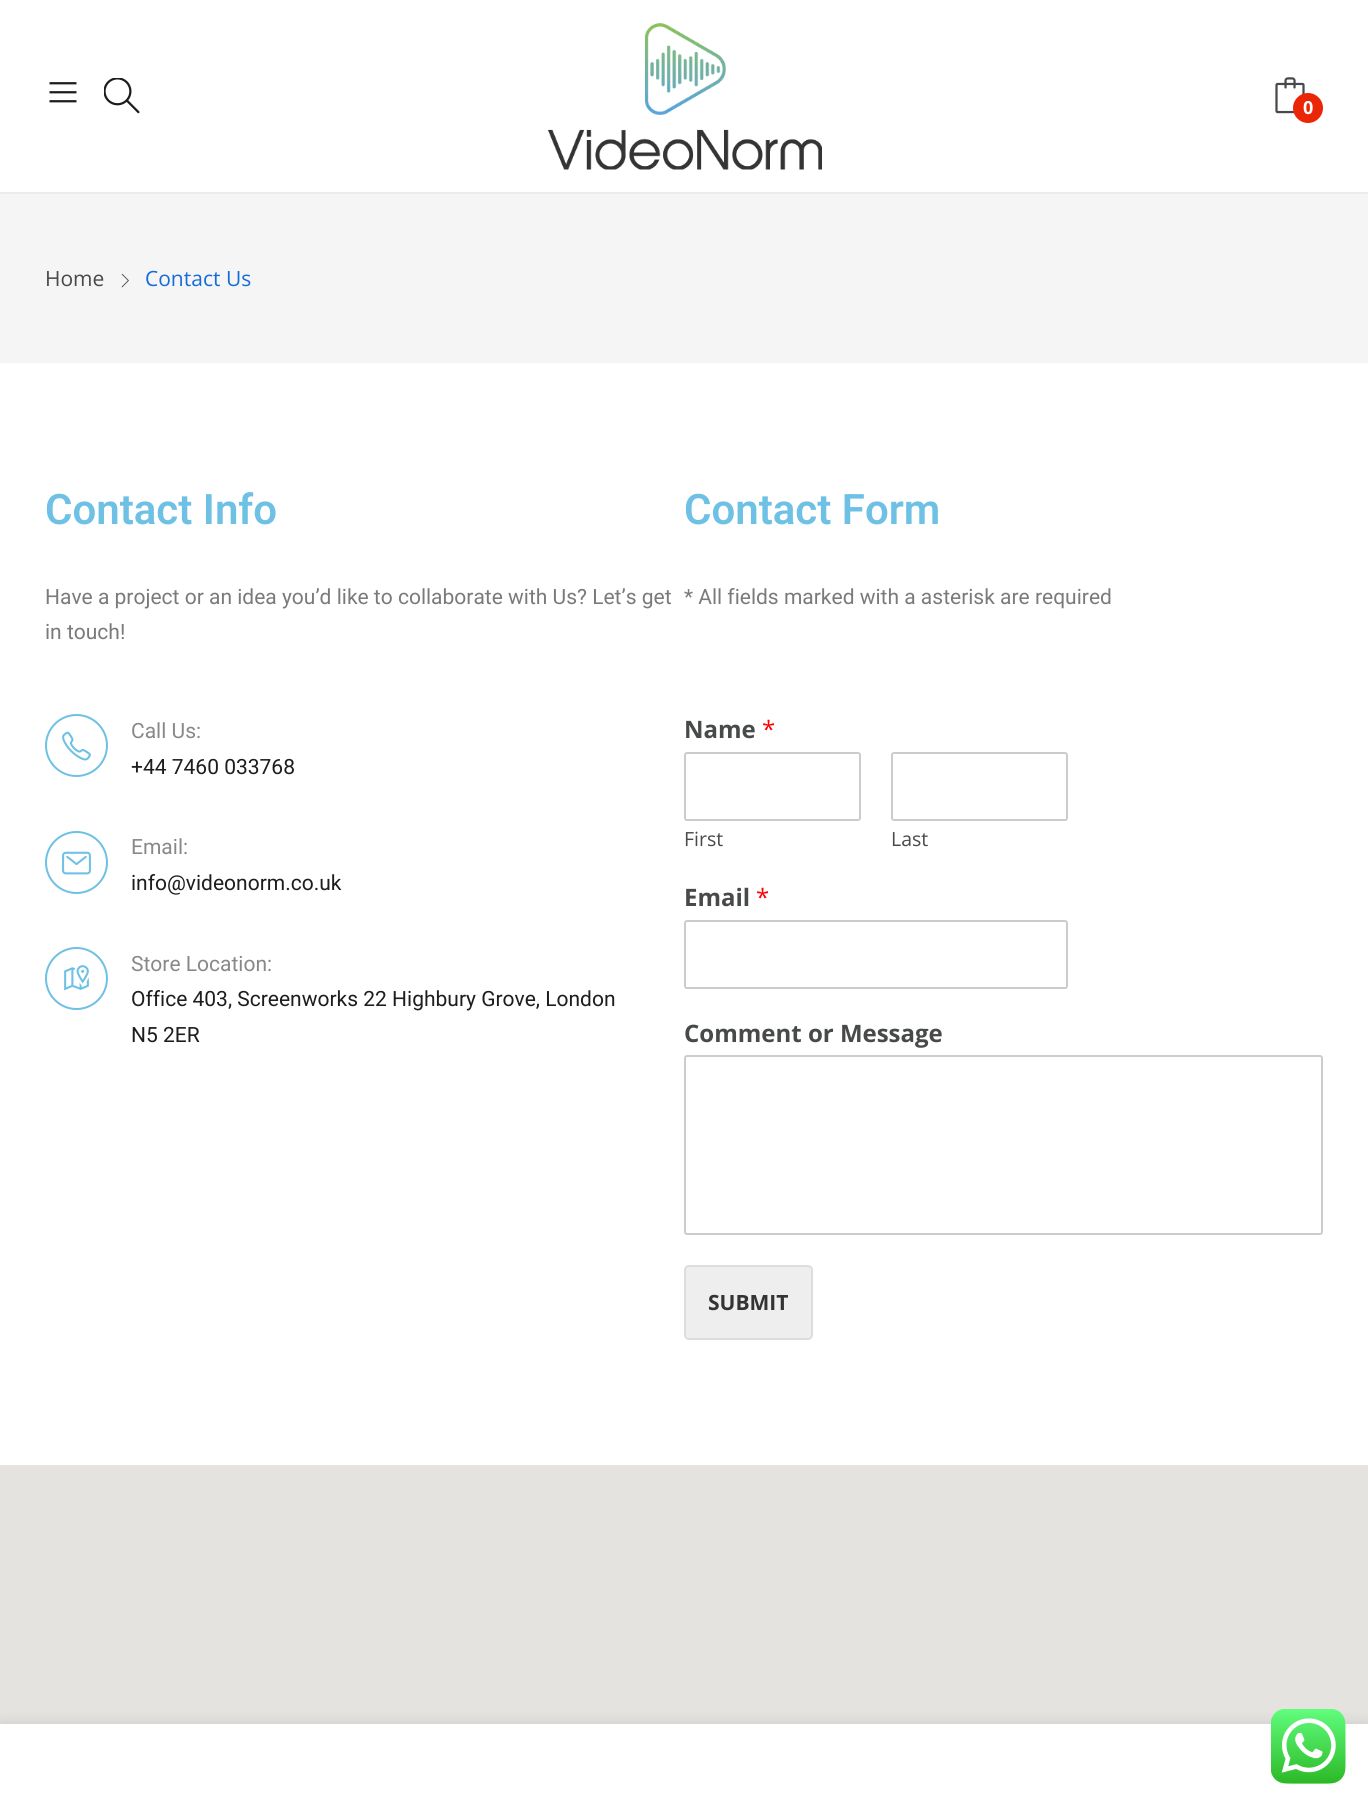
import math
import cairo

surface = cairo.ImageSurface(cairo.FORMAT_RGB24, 1368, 1805)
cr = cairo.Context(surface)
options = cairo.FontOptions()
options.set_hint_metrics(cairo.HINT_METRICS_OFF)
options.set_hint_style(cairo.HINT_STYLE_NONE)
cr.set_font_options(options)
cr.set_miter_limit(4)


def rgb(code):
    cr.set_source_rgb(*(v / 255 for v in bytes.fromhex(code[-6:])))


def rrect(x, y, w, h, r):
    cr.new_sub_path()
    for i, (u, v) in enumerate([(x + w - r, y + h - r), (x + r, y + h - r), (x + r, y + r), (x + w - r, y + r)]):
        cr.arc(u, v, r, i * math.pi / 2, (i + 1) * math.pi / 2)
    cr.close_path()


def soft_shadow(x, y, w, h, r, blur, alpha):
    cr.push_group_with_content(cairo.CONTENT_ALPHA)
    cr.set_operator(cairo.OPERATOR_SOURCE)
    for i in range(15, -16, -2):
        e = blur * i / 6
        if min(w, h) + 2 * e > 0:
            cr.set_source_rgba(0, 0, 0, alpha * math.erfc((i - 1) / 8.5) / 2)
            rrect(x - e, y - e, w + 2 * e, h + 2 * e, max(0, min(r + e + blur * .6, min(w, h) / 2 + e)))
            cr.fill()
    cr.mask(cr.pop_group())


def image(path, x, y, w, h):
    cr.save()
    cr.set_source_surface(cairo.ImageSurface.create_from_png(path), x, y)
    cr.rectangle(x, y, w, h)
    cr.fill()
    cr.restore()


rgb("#ffffff")
cr.paint()
rgb("#ebebeb")
cr.rectangle(0, 192, 1368, 2)
cr.fill()
image("img/1.png", 49, 82, 28, 21)
image("img/2.png", 104, 78, 36, 36)
image("img/3.png", 547, 23, 275, 147)
image("img/4.png", 1275, 77, 30, 37)
rgb("#eb2606")
cr.arc(1308, 108, 15, 0, 2 * math.pi)
cr.fill()
rgb("#e5e3df")
cr.rectangle(0, 1465, 1368, 259)
cr.fill()
rgb("#000000")
soft_shadow(0, 1724, 1368, 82, 0, 7, 0.12)
rgb("#ffffff")
cr.rectangle(0, 1724, 1368, 81)
cr.fill()
rgb("#f5f5f5")
cr.rectangle(0, 194, 1368, 169)
cr.fill()
image("img/5.png", 121, 273, 8, 15)
cr.arc(76.5, 745.5, 30.5, 0, 2 * math.pi)
rgb("#6ec1e4")
cr.stroke()
image("img/6.png", 62, 731, 29, 30)
cr.arc(76.5, 862.5, 30.5, 0, 2 * math.pi)
cr.stroke()
image("img/7.png", 62, 851, 29, 24)
cr.arc(76.5, 978.5, 30.5, 0, 2 * math.pi)
cr.stroke()
image("img/8.png", 64, 965, 25, 26)
rrect(685, 753, 175, 67, 2)
rgb("#cccccc")
cr.stroke()
rrect(892, 753, 175, 67, 2)
cr.stroke()
rrect(685, 921, 382, 67, 2)
cr.stroke()
rrect(685, 1056, 637, 178, 2)
cr.stroke()
rgb("#eeeeee")
rrect(685, 1266, 127, 73, 4)
cr.fill_preserve()
rgb("#dddddd")
cr.stroke()
image("img/9.png", 1271, 1709, 75, 75)
cr.select_font_face("Open Sans", cairo.FONT_SLANT_NORMAL, cairo.FONT_WEIGHT_BOLD)
cr.set_font_size(18)
rgb("#ffffff")
cr.move_to(1303, 114)
cr.show_text("0")
cr.select_font_face("Open Sans")
cr.set_font_size(21)
rgb("#47494a")
cr.move_to(45, 286)
cr.show_text("Home")
rgb("#146cda")
cr.move_to(145, 286)
cr.show_text("Contact Us")
cr.select_font_face("Roboto SemiBold")
cr.set_font_size(42)
rgb("#6ec1e4")
cr.move_to(45, 524)
cr.show_text("Contact Info")
cr.select_font_face("Roboto")
cr.set_font_size(21)
rgb("#7a7a7a")
cr.move_to(45, 604)
cr.show_text("Have a project or an idea you’d like to collaborate with Us? Let’s get")
cr.move_to(45, 639)
cr.show_text("in touch!")
rgb("#888888")
cr.move_to(131, 738)
cr.show_text("Call Us:")
rgb("#1d1d1d")
cr.move_to(131, 774)
cr.show_text("+44 7460 033768")
rgb("#888888")
cr.move_to(131, 854)
cr.show_text("Email:")
rgb("#1d1d1d")
cr.move_to(131, 890)
cr.show_text("info@videonorm.co.uk")
rgb("#888888")
cr.move_to(131, 971)
cr.show_text("Store Location:")
rgb("#1d1d1d")
cr.move_to(131, 1006)
cr.show_text("Office 403, Screenworks 22 Highbury Grove, London")
cr.move_to(131, 1042)
cr.show_text("N5 2ER")
cr.select_font_face("Roboto SemiBold")
cr.set_font_size(42)
rgb("#6ec1e4")
cr.move_to(684, 524)
cr.show_text("Contact Form")
cr.select_font_face("Roboto")
cr.set_font_size(21)
rgb("#7a7a7a")
cr.move_to(684, 604)
cr.show_text("* All fields marked with a asterisk are required")
cr.select_font_face("Open Sans", cairo.FONT_SLANT_NORMAL, cairo.FONT_WEIGHT_BOLD)
cr.set_font_size(24)
rgb("#47494a")
cr.move_to(684, 738)
cr.show_text("Name")
cr.select_font_face("Open Sans")
rgb("#ff0000")
cr.move_to(762, 738)
cr.show_text("*")
cr.set_font_size(19.5)
rgb("#47494a")
cr.move_to(684, 846)
cr.show_text("First")
cr.move_to(891, 846)
cr.show_text("Last")
cr.select_font_face("Open Sans", cairo.FONT_SLANT_NORMAL, cairo.FONT_WEIGHT_BOLD)
cr.set_font_size(24)
cr.move_to(684, 906)
cr.show_text("Email")
cr.select_font_face("Open Sans")
rgb("#ff0000")
cr.move_to(756, 906)
cr.show_text("*")
cr.select_font_face("Open Sans", cairo.FONT_SLANT_NORMAL, cairo.FONT_WEIGHT_BOLD)
rgb("#47494a")
cr.move_to(684, 1042)
cr.show_text("Comment or Message")
cr.set_font_size(21)
rgb("#333333")
cr.move_to(708, 1310)
cr.show_text("SUBMIT")
surface.write_to_png("page.png")
